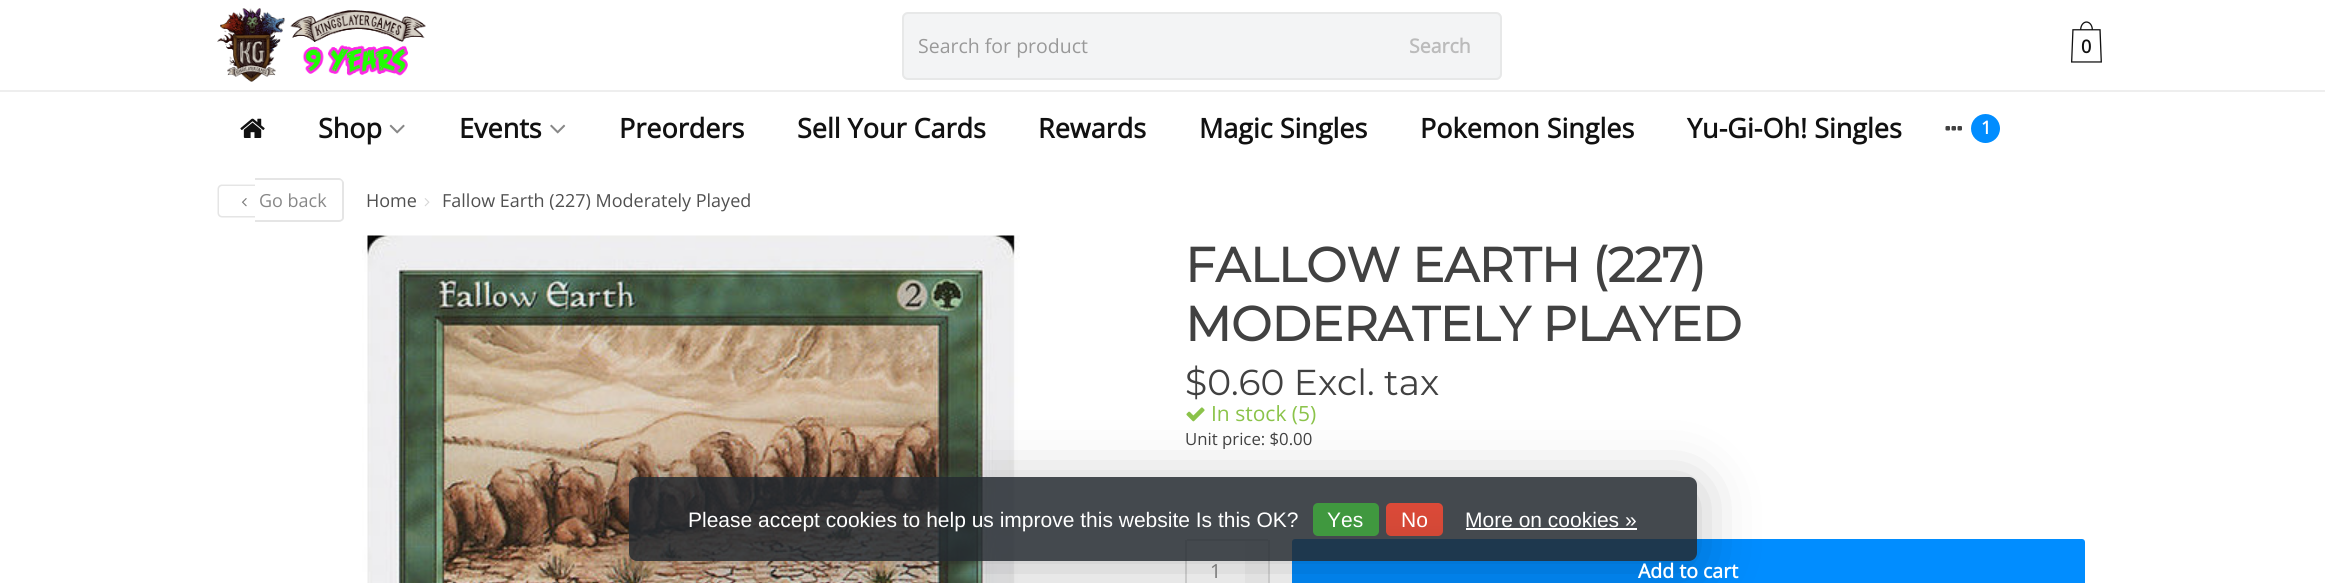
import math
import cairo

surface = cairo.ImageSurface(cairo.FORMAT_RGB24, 2325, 583)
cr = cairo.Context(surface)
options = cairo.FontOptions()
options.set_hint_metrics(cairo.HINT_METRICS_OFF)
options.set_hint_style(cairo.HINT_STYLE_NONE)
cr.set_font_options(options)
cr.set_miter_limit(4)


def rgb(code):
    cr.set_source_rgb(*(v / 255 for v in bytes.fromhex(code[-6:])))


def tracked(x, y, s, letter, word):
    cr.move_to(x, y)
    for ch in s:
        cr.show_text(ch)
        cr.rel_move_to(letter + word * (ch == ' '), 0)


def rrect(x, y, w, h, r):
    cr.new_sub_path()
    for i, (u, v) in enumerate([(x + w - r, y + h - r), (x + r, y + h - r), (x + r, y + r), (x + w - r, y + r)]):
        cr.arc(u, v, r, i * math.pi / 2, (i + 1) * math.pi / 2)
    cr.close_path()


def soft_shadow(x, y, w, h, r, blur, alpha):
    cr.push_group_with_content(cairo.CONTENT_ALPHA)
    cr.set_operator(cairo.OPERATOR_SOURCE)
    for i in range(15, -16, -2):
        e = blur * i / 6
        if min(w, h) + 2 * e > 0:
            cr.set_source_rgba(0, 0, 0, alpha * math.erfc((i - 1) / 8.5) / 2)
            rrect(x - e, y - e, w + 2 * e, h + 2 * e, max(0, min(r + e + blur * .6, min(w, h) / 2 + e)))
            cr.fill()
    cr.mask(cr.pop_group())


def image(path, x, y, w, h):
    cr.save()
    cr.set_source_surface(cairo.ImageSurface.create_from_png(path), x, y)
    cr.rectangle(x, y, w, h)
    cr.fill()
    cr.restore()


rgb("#ffffff")
cr.paint()
image("img/1.png", 217, 8, 209, 74)
rgb("#f3f4f5")
rrect(902, 12, 600, 68, 6)
cr.fill()
rrect(903, 13, 598, 66, 5)
cr.set_source_rgba(0.867, 0.867, 0.867, 0.5)
cr.stroke()
image("img/2.png", 2071, 21, 31, 42)
image("img/3.png", 240, 118, 25, 20)
image("img/4.png", 389, 124, 16, 10)
image("img/5.png", 550, 124, 16, 10)
image("img/6.png", 1945, 126, 17, 5)
rgb("#018dff")
cr.arc(1985.5, 128.5, 14.5, 0, 2 * math.pi)
cr.fill()
rgb("#eeeeee")
cr.rectangle(0, 90, 2325, 2)
cr.fill()
rgb("#e5e5e5")
cr.set_fill_rule(cairo.FILL_RULE_EVEN_ODD)
cr.new_path()
cr.move_to(222, 184.5)
cr.line_to(255, 184.5)
cr.line_to(255, 217.5)
cr.line_to(222, 217.5)
cr.curve_to(219.5, 217.5, 217.5, 215.5, 217.5, 213)
cr.line_to(217.5, 189)
cr.curve_to(217.5, 186.5, 219.5, 184.5, 222, 184.5)
cr.close_path()
cr.move_to(222, 186)
cr.line_to(255, 186)
cr.line_to(255, 216)
cr.line_to(222, 216)
cr.curve_to(220.5, 216, 219, 214.5, 219, 213)
cr.line_to(219, 189)
cr.curve_to(219, 187.5, 220.5, 186, 222, 186)
cr.close_path()
cr.fill()
cr.new_path()
cr.move_to(255, 178)
cr.line_to(339, 178)
cr.curve_to(341, 178, 344, 181, 344, 183)
cr.line_to(344, 218)
cr.curve_to(344, 220, 341, 222, 339, 222)
cr.line_to(255, 222)
cr.close_path()
cr.move_to(255, 180)
cr.line_to(339, 180)
cr.curve_to(341, 180, 342, 181, 342, 183)
cr.line_to(342, 218)
cr.curve_to(342, 219, 341, 220, 339, 220)
cr.line_to(255, 220)
cr.close_path()
cr.fill()
image("img/7.png", 241, 198, 6, 9)
image("img/8.png", 424, 198, 6, 9)
image("img/9.png", 362, 235, 658, 348)
image("img/10.png", 1186, 407, 19, 15)
rgb("#dddddd")
cr.rectangle(1187, 539, 58, 2)
cr.fill()
cr.rectangle(1185, 540, 2, 43)
cr.fill()
rgb("#f7f7f7")
cr.new_path()
cr.move_to(1245, 539)
cr.line_to(1266, 539)
cr.curve_to(1267.5, 539, 1269, 540.5, 1269, 542)
cr.line_to(1269, 583)
cr.curve_to(1269, 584.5, 1267.5, 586, 1266, 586)
cr.line_to(1245, 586)
cr.close_path()
cr.fill()
rgb("#dddddd")
cr.rectangle(1245, 539, 23, 2)
cr.fill()
cr.rectangle(1268, 540, 2, 43)
cr.fill()
rgb("#018dff")
rrect(1293, 540, 791, 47, 2)
cr.fill_preserve()
cr.stroke()
cr.save()
cr.new_path()
cr.move_to(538, 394)
cr.line_to(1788, 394)
cr.line_to(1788, 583)
cr.line_to(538, 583)
cr.close_path()
cr.move_to(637, 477)
cr.line_to(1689, 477)
cr.curve_to(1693.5, 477, 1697, 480.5, 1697, 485)
cr.line_to(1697, 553)
cr.curve_to(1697, 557.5, 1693.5, 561, 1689, 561)
cr.line_to(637, 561)
cr.curve_to(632.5, 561, 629, 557.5, 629, 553)
cr.line_to(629, 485)
cr.curve_to(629, 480.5, 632.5, 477, 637, 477)
cr.close_path()
cr.clip()
rgb("#000000")
soft_shadow(629, 485, 1068, 84, 8, 30, 0.25)
cr.restore()
cr.set_source_rgba(0.141, 0.165, 0.188, 0.85)
rrect(629, 477, 1068, 84, 8)
cr.fill()
rgb("#40983f")
rrect(1313, 503, 66, 33, 5)
cr.fill()
gradient = cairo.LinearGradient(1414, 503, 1414, 536)
gradient.add_color_stop_rgba(0, 0.863, 0.29, 0.22, 1)
gradient.add_color_stop_rgba(1, 0.82, 0.282, 0.212, 1)
cr.set_source(gradient)
rrect(1386, 503, 57, 33, 5)
cr.fill()
rgb("#ffffff")
cr.rectangle(1466, 528, 171, 2)
cr.fill()
cr.select_font_face("Open Sans")
cr.set_font_size(19.5)
rgb("#999999")
cr.move_to(918, 53)
cr.show_text("Search for product")
cr.select_font_face("Open Sans", cairo.FONT_SLANT_NORMAL, cairo.FONT_WEIGHT_BOLD)
rgb("#bbbbbb")
cr.move_to(1409, 53)
cr.show_text("Search")
cr.set_font_size(18)
rgb("#111111")
cr.move_to(2081, 53)
cr.show_text("0")
cr.set_font_size(27)
for x, y, s in [
    (318, 138, "Shop"),
    (459, 138, "Events"),
    (619, 138, "Preorders"),
    (797, 138, "Sell Your Cards"),
    (1038, 138, "Rewards"),
    (1199, 138, "Magic Singles"),
    (1420, 138, "Pokemon Singles"),
    (1687, 138, "Yu-Gi-Oh! Singles"),
]:
    cr.move_to(x, y)
    cr.show_text(s)
cr.set_font_size(18)
rgb("#ffffff")
cr.move_to(1981, 134)
cr.show_text("1")
cr.select_font_face("Open Sans")
rgb("#888888")
cr.move_to(259, 207)
cr.show_text("Go back")
rgb("#505050")
cr.move_to(366, 207)
cr.show_text("Home")
cr.move_to(442, 207)
cr.show_text("Fallow Earth (227) Moderately Played")
cr.select_font_face("Montserrat", cairo.FONT_SLANT_NORMAL, cairo.FONT_WEIGHT_BOLD)
cr.set_font_size(48.5)
rgb("#414141")
tracked(1185, 282, "FALLOW EARTH (227)", -0.4, 0)
tracked(1185, 341, "MODERATELY PLAYED", -0.4, 0)
cr.select_font_face("Montserrat Thin")
cr.set_font_size(36)
cr.move_to(1185, 395)
cr.show_text("$0.60 Excl. tax")
cr.select_font_face("Open Sans")
cr.set_font_size(21)
rgb("#8bc34a")
cr.move_to(1211, 421)
cr.show_text("In stock (5)")
cr.set_font_size(16.75)
rgb("#414141")
cr.move_to(1185, 445)
cr.show_text("Unit price: $0.00")
cr.set_font_size(19.5)
rgb("#777777")
cr.move_to(1210, 578)
cr.show_text("1")
cr.select_font_face("Open Sans", cairo.FONT_SLANT_NORMAL, cairo.FONT_WEIGHT_BOLD)
rgb("#ffffff")
cr.move_to(1638, 578)
cr.show_text("Add to cart")
cr.select_font_face("Liberation Sans")
cr.set_font_size(21)
for x, y, s in [
    (688, 527, "Please accept cookies to help us improve this website Is this OK?"),
    (1327, 527, "Yes"),
    (1401, 527, "No"),
    (1465, 527, "More on cookies »"),
]:
    cr.move_to(x, y)
    cr.show_text(s)
surface.write_to_png("page.png")
